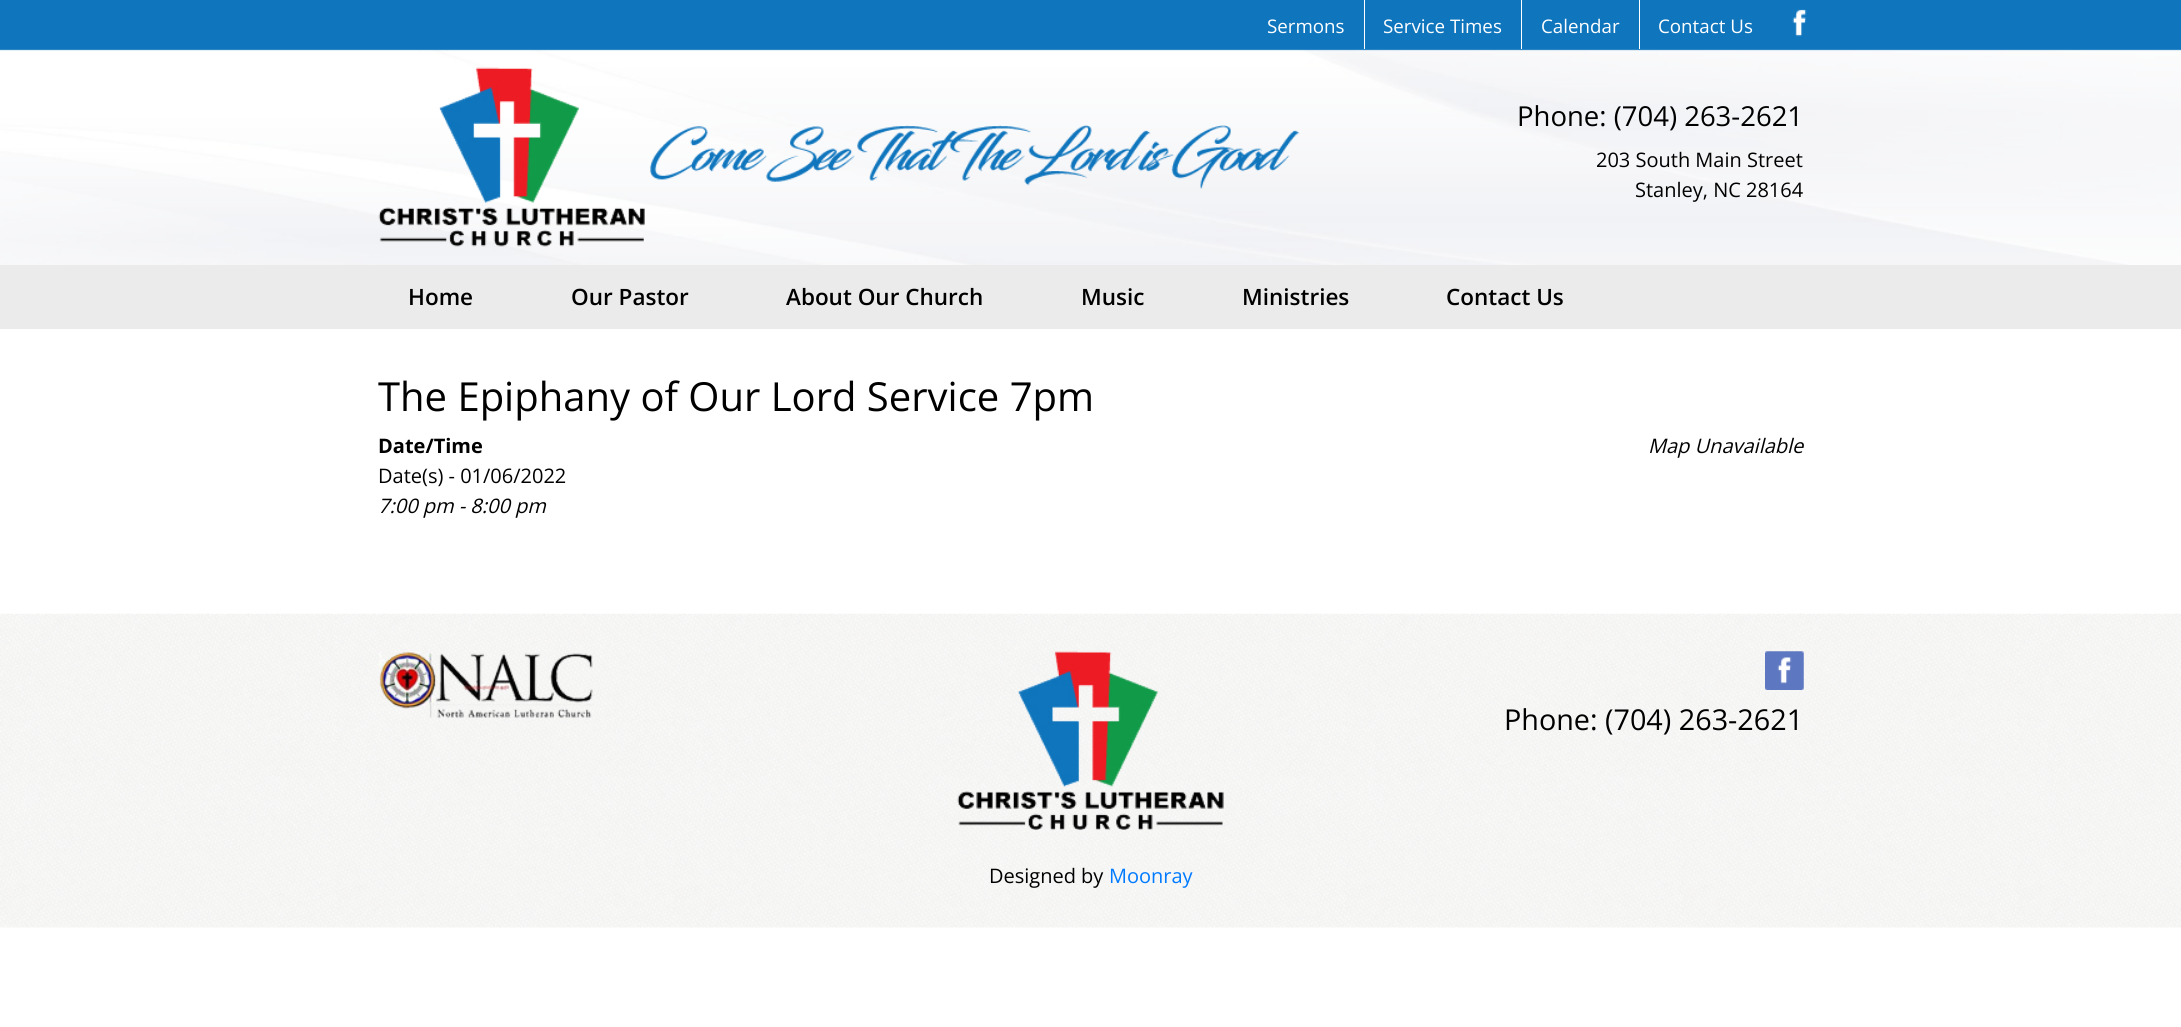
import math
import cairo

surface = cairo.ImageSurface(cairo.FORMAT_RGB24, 2181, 1027)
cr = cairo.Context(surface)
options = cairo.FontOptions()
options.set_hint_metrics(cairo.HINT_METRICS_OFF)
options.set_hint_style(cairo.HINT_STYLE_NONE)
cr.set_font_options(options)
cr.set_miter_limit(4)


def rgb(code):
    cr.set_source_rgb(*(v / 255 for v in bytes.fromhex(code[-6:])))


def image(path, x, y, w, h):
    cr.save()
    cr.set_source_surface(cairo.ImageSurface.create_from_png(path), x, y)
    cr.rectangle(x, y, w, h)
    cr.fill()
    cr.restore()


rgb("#ffffff")
cr.paint()
for x, y, w, h, color in [
    (0, 0, 2181, 49, "#0f75bd"),
    (1364, 0, 1, 49, "#ffffff"),
    (1521, 0, 1, 49, "#ffffff"),
    (1639, 0, 1, 49, "#ffffff"),
]:
    rgb(color)
    cr.rectangle(x, y, w, h)
    cr.fill()
image("img/1.png", 1792, 9, 15, 28)
image("img/2.png", 0, 49, 2181, 216)
image("img/3.png", 378, 67, 267, 180)
image("img/4.png", 650, 125, 650, 64)
rgb("#ebebeb")
cr.rectangle(0, 265, 2181, 64)
cr.fill()
image("img/5.png", 0, 613, 2181, 315)
image("img/6.png", 379, 651, 215, 67)
image("img/7.png", 1765, 651, 39, 39)
image("img/8.png", 957, 651, 267, 179)
cr.select_font_face("Open Sans")
cr.set_font_size(18.75)
rgb("#ffffff")
for x, y, s in [
    (1267, 33, "Sermons"),
    (1383, 33, "Service Times"),
    (1541, 33, "Calendar"),
    (1658, 33, "Contact Us"),
]:
    cr.move_to(x, y)
    cr.show_text(s)
cr.set_font_size(27.5)
rgb("#000000")
cr.move_to(1517, 126)
cr.show_text("Phone: (704) 263-2621")
cr.set_font_size(20)
cr.move_to(1596, 167)
cr.show_text("203 South Main Street")
cr.move_to(1635, 197)
cr.show_text("Stanley, NC 28164")
cr.select_font_face("Open Sans SemiBold")
cr.set_font_size(22.5)
for x, y, s in [
    (408, 305, "Home"),
    (571, 305, "Our Pastor"),
    (786, 305, "About Our Church"),
    (1081, 305, "Music"),
    (1242, 305, "Ministries"),
    (1446, 305, "Contact Us"),
]:
    cr.move_to(x, y)
    cr.show_text(s)
cr.select_font_face("Open Sans")
cr.set_font_size(40)
cr.move_to(378, 411)
cr.show_text("The Epiphany of Our Lord Service 7pm")
cr.select_font_face("Open Sans", cairo.FONT_SLANT_NORMAL, cairo.FONT_WEIGHT_BOLD)
cr.set_font_size(20)
cr.move_to(378, 453)
cr.show_text("Date/Time")
cr.select_font_face("Open Sans")
cr.move_to(378, 483)
cr.show_text("Date(s) - 01/06/2022")
cr.select_font_face("Open Sans", cairo.FONT_SLANT_ITALIC)
cr.move_to(378, 513)
cr.show_text("7:00 pm - 8:00 pm")
cr.move_to(1648, 453)
cr.show_text("Map Unavailable")
cr.select_font_face("Open Sans")
cr.set_font_size(28.75)
cr.move_to(1504, 730)
cr.show_text("Phone: (704) 263-2621")
cr.set_font_size(20)
cr.move_to(989, 883)
cr.show_text("Designed by")
rgb("#007bff")
cr.move_to(1109, 883)
cr.show_text("Moonray")
surface.write_to_png("page.png")
